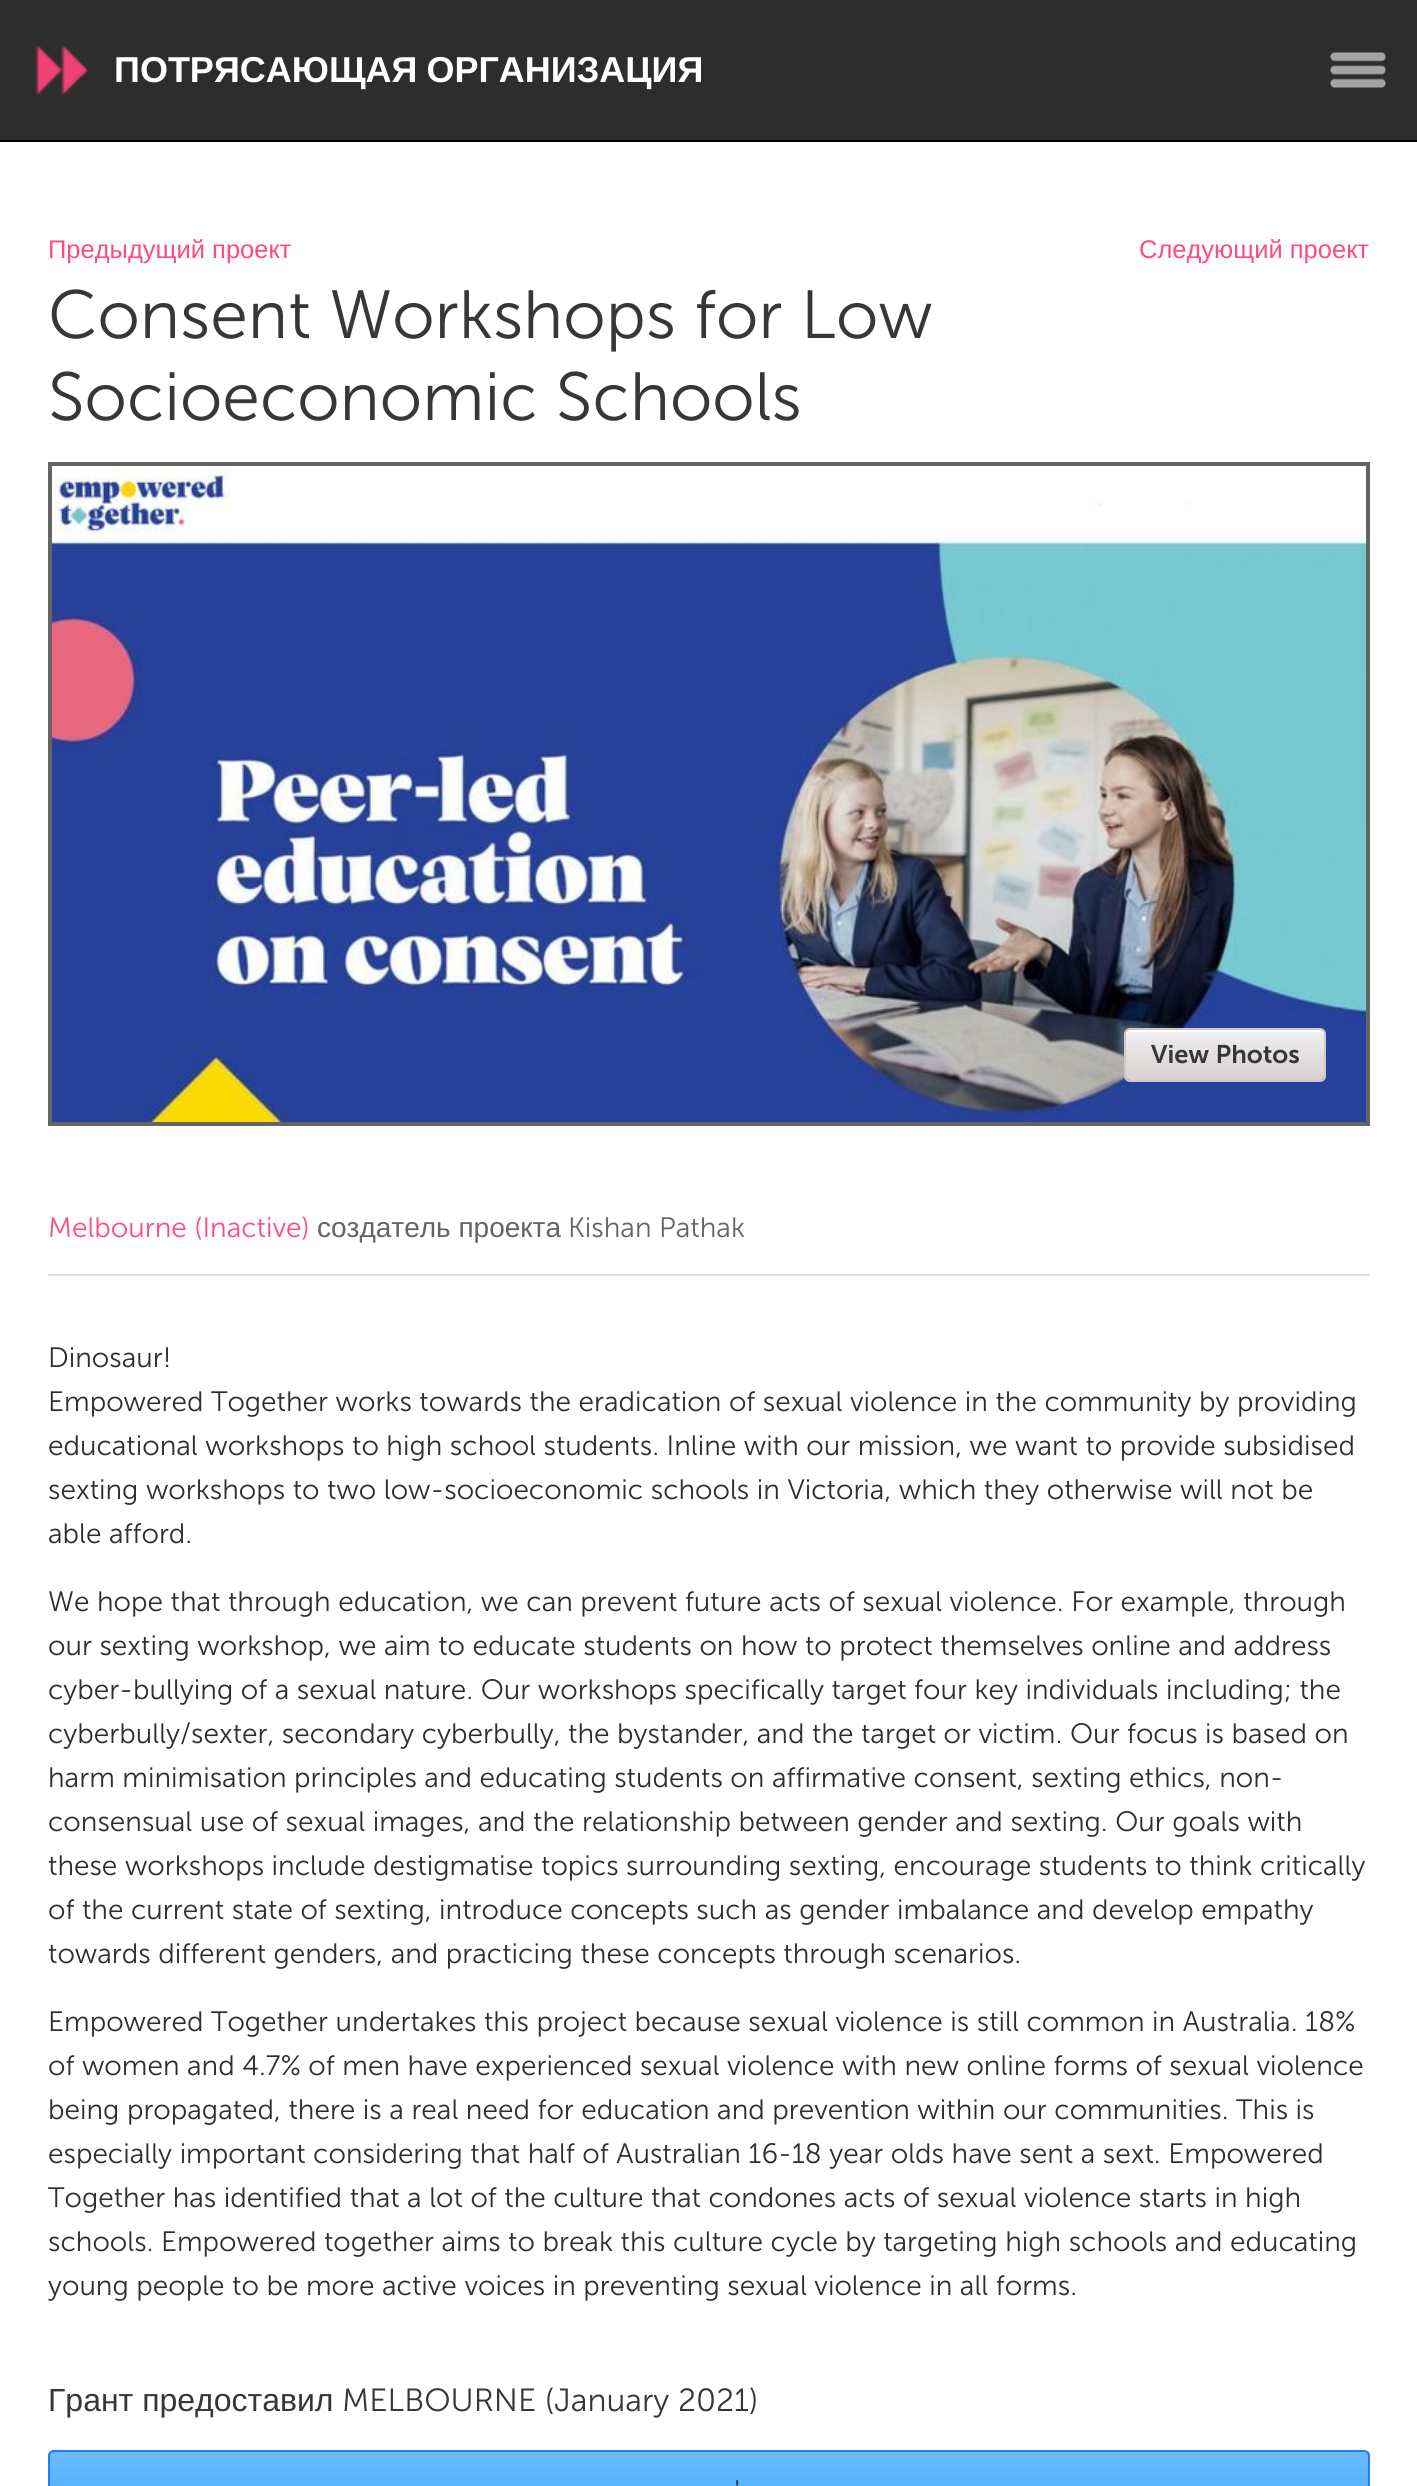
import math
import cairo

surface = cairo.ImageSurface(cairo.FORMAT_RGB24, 1417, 2486)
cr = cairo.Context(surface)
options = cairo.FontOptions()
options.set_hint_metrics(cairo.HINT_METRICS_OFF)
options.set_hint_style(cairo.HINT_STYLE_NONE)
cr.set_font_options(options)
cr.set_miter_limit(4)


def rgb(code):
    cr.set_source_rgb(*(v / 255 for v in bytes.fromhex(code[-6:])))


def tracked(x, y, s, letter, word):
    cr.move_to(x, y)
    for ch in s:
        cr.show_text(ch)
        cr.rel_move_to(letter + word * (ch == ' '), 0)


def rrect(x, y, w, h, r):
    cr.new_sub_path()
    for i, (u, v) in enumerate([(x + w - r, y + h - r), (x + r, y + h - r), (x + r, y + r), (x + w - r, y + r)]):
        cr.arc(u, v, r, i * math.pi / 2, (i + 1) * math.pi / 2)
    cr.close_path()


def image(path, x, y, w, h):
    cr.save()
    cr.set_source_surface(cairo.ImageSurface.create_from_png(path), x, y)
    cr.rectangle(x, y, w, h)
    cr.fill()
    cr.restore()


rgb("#ffffff")
cr.paint()
rgb("#2d2d2d")
cr.rectangle(0, 0, 1417, 140)
cr.fill()
rgb("#000000")
cr.rectangle(0, 140, 1417, 2)
cr.fill()
image("img/1.png", 35, 45, 54, 50)
image("img/2.png", 1330, 52, 56, 36)
rgb("#646464")
cr.rectangle(48, 462, 1322, 664)
cr.fill()
image("img/3.png", 52, 466, 1314, 656)
gradient = cairo.LinearGradient(1225, 1030, 1225, 1080)
gradient.add_color_stop_rgba(0, 0.941, 0.941, 0.941, 1)
gradient.add_color_stop_rgba(1, 0.847, 0.816, 0.816, 1)
cr.set_source(gradient)
rrect(1126, 1030, 198, 50, 4)
cr.fill()
rgb("#ffffff")
cr.new_path()
cr.move_to(1130, 1032)
cr.line_to(1320, 1032)
cr.curve_to(1322, 1032, 1324, 1034, 1324, 1036)
cr.line_to(1324, 1034)
cr.curve_to(1324, 1032, 1322, 1030, 1320, 1030)
cr.line_to(1130, 1030)
cr.curve_to(1128, 1030, 1126, 1032, 1126, 1034)
cr.line_to(1126, 1036)
cr.curve_to(1126, 1034, 1128, 1032, 1130, 1032)
cr.close_path()
cr.fill()
rrect(1125, 1029, 200, 52, 5)
rgb("#d1c8c8")
cr.stroke()
rgb("#dcdcdc")
cr.rectangle(48, 1274, 1322, 2)
cr.fill()
cr.save()
rrect(48, 2450, 1322, 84, 6)
cr.clip()
gradient = cairo.LinearGradient(709, 2452, 709, 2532)
gradient.add_color_stop_rgba(0, 0.416, 0.741, 1, 1)
gradient.add_color_stop_rgba(1, 0.255, 0.647, 1, 1)
cr.set_source(gradient)
cr.rectangle(48, 2452, 1322, 34)
cr.fill()
cr.restore()
rrect(49, 2451, 1320, 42, 5)
rgb("#227aff")
cr.stroke()
cr.select_font_face("Liberation Sans", cairo.FONT_SLANT_NORMAL, cairo.FONT_WEIGHT_BOLD)
cr.set_font_size(36)
rgb("#ffffff")
tracked(114, 82, "ПОТРЯСАЮЩАЯ ОРГАНИЗАЦИЯ", 0, -1)
cr.select_font_face("Liberation Sans")
cr.set_font_size(25.5)
rgb("#ff4b7e")
cr.move_to(48, 258)
cr.show_text("Предыдущий проект")
cr.move_to(1139, 258)
cr.show_text("Следующий проект")
cr.select_font_face("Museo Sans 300 Light")
cr.set_font_size(68)
rgb("#373737")
cr.move_to(48, 338)
cr.show_text("Consent Workshops for Low")
cr.move_to(48, 420)
cr.show_text("Socioeconomic Schools")
cr.select_font_face("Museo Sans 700 SemiBold")
cr.set_font_size(25.5)
cr.move_to(1151, 1063)
cr.show_text("View Photos")
cr.select_font_face("Museo Sans 300 Light")
cr.set_font_size(28)
rgb("#ff4b7e")
cr.move_to(48, 1237)
cr.show_text("Melbourne (Inactive)")
cr.select_font_face("Liberation Sans")
rgb("#646464")
cr.move_to(317, 1237)
cr.show_text("создатель проекта")
cr.select_font_face("Museo Sans 300 Light")
cr.move_to(568, 1237)
cr.show_text("Kishan Pathak")
rgb("#2e2e2e")
for x, y, s in [
    (48, 1367, "Dinosaur!"),
    (48, 1411, "Empowered Together works towards the eradication of sexual violence in the community by providing"),
    (48, 1455, "educational workshops to high school students. Inline with our mission, we want to provide subsidised"),
    (48, 1499, "sexting workshops to two low-socioeconomic schools in Victoria, which they otherwise will not be"),
    (48, 1543, "able afford."),
    (48, 1611, "We hope that through education, we can prevent future acts of sexual violence. For example, through"),
    (48, 1655, "our sexting workshop, we aim to educate students on how to protect themselves online and address"),
    (48, 1699, "cyber-bullying of a sexual nature. Our workshops specifically target four key individuals including; the"),
    (48, 1743, "cyberbully/sexter, secondary cyberbully, the bystander, and the target or victim. Our focus is based on"),
    (48, 1787, "harm minimisation principles and educating students on affirmative consent, sexting ethics, non-"),
    (48, 1831, "consensual use of sexual images, and the relationship between gender and sexting. Our goals with"),
    (48, 1875, "these workshops include destigmatise topics surrounding sexting, encourage students to think critically"),
    (48, 1919, "of the current state of sexting, introduce concepts such as gender imbalance and develop empathy"),
    (48, 1963, "towards different genders, and practicing these concepts through scenarios."),
    (48, 2031, "Empowered Together undertakes this project because sexual violence is still common in Australia. 18%"),
    (48, 2075, "of women and 4.7% of men have experienced sexual violence with new online forms of sexual violence"),
    (48, 2119, "being propagated, there is a real need for education and prevention within our communities. This is"),
    (48, 2163, "especially important considering that half of Australian 16-18 year olds have sent a sext. Empowered"),
    (48, 2207, "Together has identified that a lot of the culture that condones acts of sexual violence starts in high"),
    (48, 2251, "schools. Empowered together aims to break this culture cycle by targeting high schools and educating"),
    (48, 2295, "young people to be more active voices in preventing sexual violence in all forms."),
]:
    cr.move_to(x, y)
    cr.show_text(s)
cr.select_font_face("Liberation Sans")
cr.set_font_size(32)
rgb("#373737")
cr.move_to(48, 2411)
cr.show_text("Грант предоставил")
cr.select_font_face("Museo Sans 300 Light")
cr.move_to(342, 2411)
cr.show_text("MELBOURNE (January 2021)")
cr.move_to(734, 2503)
cr.show_text("'")
surface.write_to_png("page.png")
